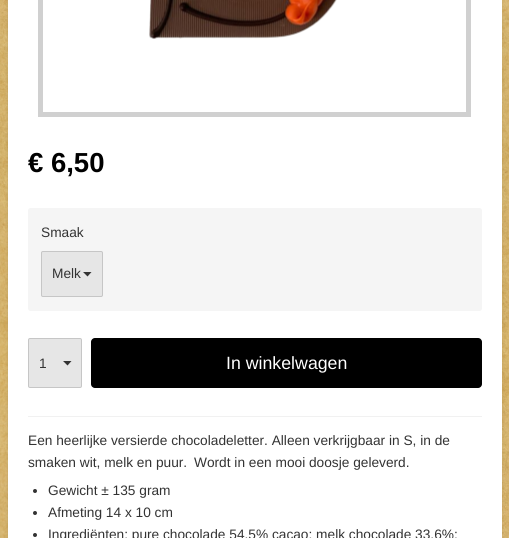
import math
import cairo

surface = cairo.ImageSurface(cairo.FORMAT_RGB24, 509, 538)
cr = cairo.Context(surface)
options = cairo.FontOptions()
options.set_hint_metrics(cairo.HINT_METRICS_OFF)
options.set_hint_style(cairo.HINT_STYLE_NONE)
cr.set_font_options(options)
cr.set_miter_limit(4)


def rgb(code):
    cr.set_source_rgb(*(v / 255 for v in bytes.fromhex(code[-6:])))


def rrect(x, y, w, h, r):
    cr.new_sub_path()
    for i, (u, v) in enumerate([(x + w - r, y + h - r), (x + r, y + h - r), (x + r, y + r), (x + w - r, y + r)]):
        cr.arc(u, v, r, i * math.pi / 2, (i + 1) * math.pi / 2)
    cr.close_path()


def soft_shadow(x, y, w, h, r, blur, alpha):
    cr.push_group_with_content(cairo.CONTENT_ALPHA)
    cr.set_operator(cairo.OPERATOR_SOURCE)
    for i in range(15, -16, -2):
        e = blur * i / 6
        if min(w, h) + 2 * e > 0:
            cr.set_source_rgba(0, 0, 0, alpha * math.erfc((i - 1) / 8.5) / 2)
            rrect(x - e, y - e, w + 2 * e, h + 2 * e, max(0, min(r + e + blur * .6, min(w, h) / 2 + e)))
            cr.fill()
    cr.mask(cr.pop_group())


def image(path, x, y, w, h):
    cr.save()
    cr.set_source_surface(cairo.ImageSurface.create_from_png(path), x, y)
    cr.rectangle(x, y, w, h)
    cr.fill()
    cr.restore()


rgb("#ffffff")
cr.paint()
gradient = cairo.LinearGradient(255, 405, 255, -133)
gradient.add_color_stop_rgba(0, 0.855, 0.722, 0.267, 1)
gradient.add_color_stop_rgba(1, 0.863, 0.737, 0.31, 1)
cr.set_source(gradient)
cr.rectangle(0, 0, 509, 405)
cr.fill()
gradient = cairo.LinearGradient(255, 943, 255, 405)
gradient.add_color_stop_rgba(0, 0.855, 0.722, 0.267, 1)
gradient.add_color_stop_rgba(1, 0.863, 0.737, 0.31, 1)
cr.set_source(gradient)
cr.rectangle(0, 405, 509, 133)
cr.fill()
image("img/1.png", 0, 0, 509, 538)
rgb("#000000")
soft_shadow(8, -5, 494, 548, 0, 1.5, 0.1)
rgb("#ffffff")
cr.rectangle(8, 0, 494, 538)
cr.fill()
image("img/2.png", 38, 0, 433, 117)
rgb("#f5f5f5")
rrect(28, 208, 454, 103, 2.5)
cr.fill()
rgb("#e6e6e6")
rrect(41, 251, 62, 46, 2)
cr.fill()
rgb("#333333")
cr.new_path()
cr.move_to(87.5, 276.5)
cr.line_to(83, 272)
cr.line_to(91.5, 272)
cr.close_path()
cr.fill()
rrect(41.5, 251.5, 61, 45, 1.5)
rgb("#c6c6c6")
cr.set_line_width(1)
cr.stroke()
rgb("#e6e6e6")
rrect(28, 338, 54, 50, 2)
cr.fill()
rgb("#333333")
cr.new_path()
cr.move_to(67.5, 365.5)
cr.line_to(63, 361)
cr.line_to(71.5, 361)
cr.close_path()
cr.fill()
rrect(28.5, 338.5, 53, 49, 1.5)
cr.set_source_rgba(0.651, 0.651, 0.651, 0.5)
cr.stroke()
rgb("#000000")
rrect(91, 338, 391, 50, 4)
cr.fill()
rgb("#f1f1f1")
cr.rectangle(28, 416, 454, 1)
cr.fill()
rgb("#333333")
cr.arc(35, 491, 2, 0, 2 * math.pi)
cr.fill()
cr.arc(35, 513, 2, 0, 2 * math.pi)
cr.fill()
cr.arc(35, 535, 2, 0, 2 * math.pi)
cr.fill()
cr.select_font_face("Liberation Sans", cairo.FONT_SLANT_NORMAL, cairo.FONT_WEIGHT_BOLD)
cr.set_font_size(27.5)
rgb("#000000")
cr.move_to(28, 172)
cr.show_text("€ 6,50")
cr.select_font_face("Liberation Sans")
cr.set_font_size(13.7)
rgb("#333333")
for x, y, s in [
    (41, 237, "Smaak"),
    (52, 278, "Melk"),
    (39, 368, "1"),
]:
    cr.move_to(x, y)
    cr.show_text(s)
cr.set_font_size(17.75)
rgb("#ffffff")
cr.move_to(226, 369)
cr.show_text("In winkelwagen")
cr.set_font_size(13.7)
rgb("#333333")
for x, y, s in [
    (28, 445, "Een heerlijke versierde chocoladeletter. Alleen verkrijgbaar in S, in de"),
    (28, 467, "smaken wit, melk en puur."),
    (194, 467, "Wordt in een mooi doosje geleverd."),
    (48, 495, "Gewicht ± 135 gram"),
    (48, 517, "Afmeting 14 x 10 cm"),
    (48, 539, "Ingrediënten: pure chocolade 54,5% cacao: melk chocolade 33,6%:"),
]:
    cr.move_to(x, y)
    cr.show_text(s)
surface.write_to_png("page.png")
